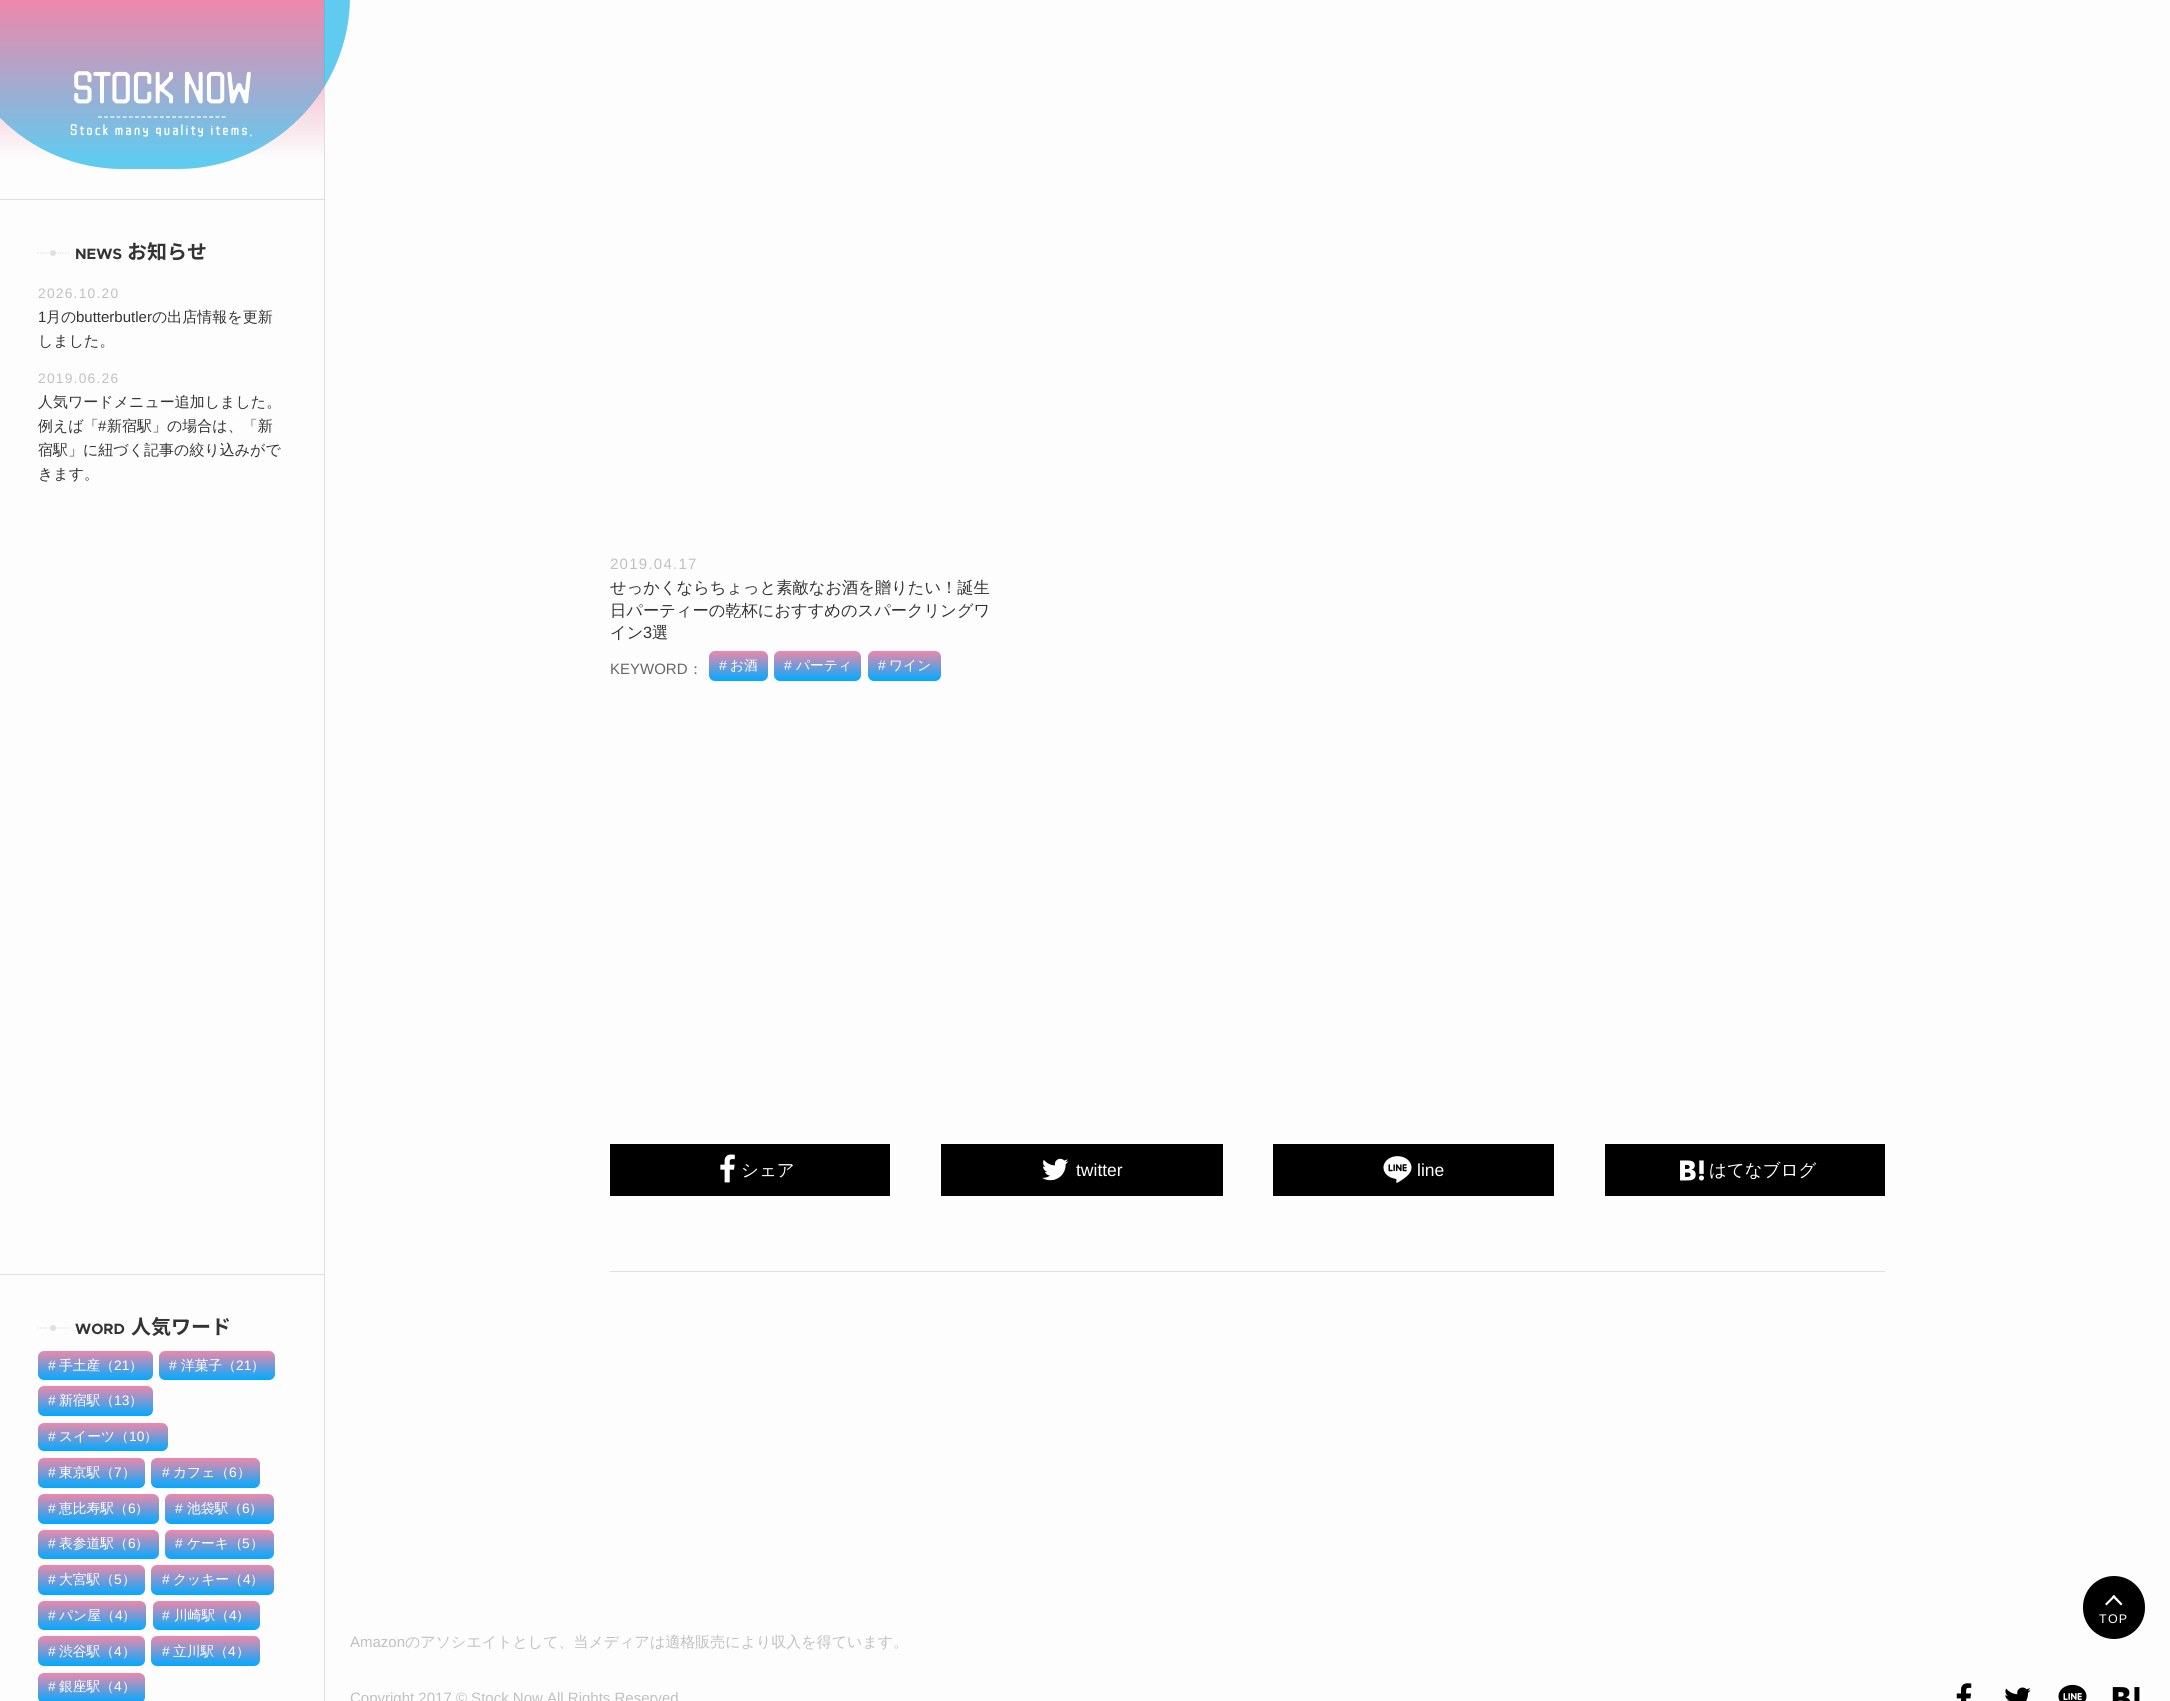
import math
import cairo

surface = cairo.ImageSurface(cairo.FORMAT_RGB24, 2170, 1701)
cr = cairo.Context(surface)
options = cairo.FontOptions()
options.set_hint_metrics(cairo.HINT_METRICS_OFF)
options.set_hint_style(cairo.HINT_STYLE_NONE)
cr.set_font_options(options)
cr.set_miter_limit(4)


def rgb(code):
    cr.set_source_rgb(*(v / 255 for v in bytes.fromhex(code[-6:])))


def tracked(x, y, s, letter, word):
    cr.move_to(x, y)
    for ch in s:
        cr.show_text(ch)
        cr.rel_move_to(letter + word * (ch == ' '), 0)


def rrect(x, y, w, h, r):
    cr.new_sub_path()
    for i, (u, v) in enumerate([(x + w - r, y + h - r), (x + r, y + h - r), (x + r, y + r), (x + w - r, y + r)]):
        cr.arc(u, v, r, i * math.pi / 2, (i + 1) * math.pi / 2)
    cr.close_path()


def image(path, x, y, w, h):
    cr.save()
    cr.set_source_surface(cairo.ImageSurface.create_from_png(path), x, y)
    cr.rectangle(x, y, w, h)
    cr.fill()
    cr.restore()


rgb("#fdfdfd")
cr.paint()
rgb("#e0e0e0")
cr.rectangle(324, 0, 1, 1701)
cr.fill()
cr.rectangle(0, 199, 325, 1)
cr.fill()
cr.set_source_rgba(0, 0.667, 1, 0.4)
rrect(-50, -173, 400, 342, 173)
cr.fill()
cr.set_source_rgba(1, 1, 0, 0.1)
rrect(-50, -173, 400, 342, 173)
cr.fill()
cr.set_source_rgba(0, 0.667, 1, 0.4)
rrect(-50, -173, 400, 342, 173)
cr.fill()
gradient = cairo.LinearGradient(162, 0, 162, 199)
gradient.add_color_stop_rgba(0, 0.933, 0.533, 0.667, 1)
gradient.add_color_stop_rgba(0.8, 0.933, 0.533, 0.667, 0)
cr.set_source(gradient)
cr.rectangle(0, 0, 324, 156)
cr.fill()
cr.new_path()
cr.move_to(98, 117)
cr.line_to(225.5, 117)
rgb("#ffffff")
cr.set_line_width(1.2)
cr.set_dash([3.75, 2.44])
cr.stroke()
rgb("#e0e0e0")
cr.arc(53, 253, 3, 0, 2 * math.pi)
cr.fill()
cr.new_path()
cr.move_to(37.5, 253)
cr.line_to(69, 253)
cr.set_dash([1.25, 1.25])
cr.stroke()
cr.rectangle(0, 1274, 324, 1)
cr.fill()
cr.arc(53, 1328, 3, 0, 2 * math.pi)
cr.fill()
cr.new_path()
cr.move_to(37.5, 1328)
cr.line_to(69, 1328)
cr.stroke()
gradient = cairo.LinearGradient(95, 1351, 95, 1380)
gradient.add_color_stop_rgba(0, 0.933, 0.533, 0.667, 1)
gradient.add_color_stop_rgba(1, 0, 0.667, 1, 1)
cr.set_source(gradient)
rrect(38, 1351, 115, 29, 6)
cr.fill()
gradient = cairo.LinearGradient(217, 1351, 217, 1380)
gradient.add_color_stop_rgba(0, 0.933, 0.533, 0.667, 1)
gradient.add_color_stop_rgba(1, 0, 0.667, 1, 1)
cr.set_source(gradient)
rrect(159, 1351, 116, 29, 6)
cr.fill()
gradient = cairo.LinearGradient(95, 1386, 95, 1416)
gradient.add_color_stop_rgba(0, 0.933, 0.533, 0.667, 1)
gradient.add_color_stop_rgba(1, 0, 0.667, 1, 1)
cr.set_source(gradient)
rrect(38, 1386, 115, 30, 6)
cr.fill()
gradient = cairo.LinearGradient(103, 1423, 103, 1451)
gradient.add_color_stop_rgba(0, 0.933, 0.533, 0.667, 1)
gradient.add_color_stop_rgba(1, 0, 0.667, 1, 1)
cr.set_source(gradient)
rrect(38, 1423, 130, 28, 6)
cr.fill()
gradient = cairo.LinearGradient(91, 1458, 91, 1488)
gradient.add_color_stop_rgba(0, 0.933, 0.533, 0.667, 1)
gradient.add_color_stop_rgba(1, 0, 0.667, 1, 1)
cr.set_source(gradient)
rrect(38, 1458, 107, 30, 6)
cr.fill()
gradient = cairo.LinearGradient(206, 1458, 206, 1488)
gradient.add_color_stop_rgba(0, 0.933, 0.533, 0.667, 1)
gradient.add_color_stop_rgba(1, 0, 0.667, 1, 1)
cr.set_source(gradient)
rrect(151, 1458, 109, 30, 6)
cr.fill()
gradient = cairo.LinearGradient(98, 1494, 98, 1524)
gradient.add_color_stop_rgba(0, 0.933, 0.533, 0.667, 1)
gradient.add_color_stop_rgba(1, 0, 0.667, 1, 1)
cr.set_source(gradient)
rrect(38, 1494, 121, 30, 6)
cr.fill()
gradient = cairo.LinearGradient(219, 1494, 219, 1524)
gradient.add_color_stop_rgba(0, 0.933, 0.533, 0.667, 1)
gradient.add_color_stop_rgba(1, 0, 0.667, 1, 1)
cr.set_source(gradient)
rrect(165, 1494, 109, 30, 6)
cr.fill()
gradient = cairo.LinearGradient(98, 1530, 98, 1559)
gradient.add_color_stop_rgba(0, 0.933, 0.533, 0.667, 1)
gradient.add_color_stop_rgba(1, 0, 0.667, 1, 1)
cr.set_source(gradient)
rrect(38, 1530, 121, 29, 6)
cr.fill()
gradient = cairo.LinearGradient(219, 1530, 219, 1559)
gradient.add_color_stop_rgba(0, 0.933, 0.533, 0.667, 1)
gradient.add_color_stop_rgba(1, 0, 0.667, 1, 1)
cr.set_source(gradient)
rrect(165, 1530, 109, 29, 6)
cr.fill()
gradient = cairo.LinearGradient(91, 1565, 91, 1595)
gradient.add_color_stop_rgba(0, 0.933, 0.533, 0.667, 1)
gradient.add_color_stop_rgba(1, 0, 0.667, 1, 1)
cr.set_source(gradient)
rrect(38, 1565, 107, 30, 6)
cr.fill()
gradient = cairo.LinearGradient(213, 1565, 213, 1595)
gradient.add_color_stop_rgba(0, 0.933, 0.533, 0.667, 1)
gradient.add_color_stop_rgba(1, 0, 0.667, 1, 1)
cr.set_source(gradient)
rrect(151, 1565, 123, 30, 6)
cr.fill()
gradient = cairo.LinearGradient(92, 1601, 92, 1630)
gradient.add_color_stop_rgba(0, 0.933, 0.533, 0.667, 1)
gradient.add_color_stop_rgba(1, 0, 0.667, 1, 1)
cr.set_source(gradient)
rrect(38, 1601, 108, 29, 6)
cr.fill()
gradient = cairo.LinearGradient(206, 1601, 206, 1630)
gradient.add_color_stop_rgba(0, 0.933, 0.533, 0.667, 1)
gradient.add_color_stop_rgba(1, 0, 0.667, 1, 1)
cr.set_source(gradient)
rrect(153, 1601, 107, 29, 6)
cr.fill()
gradient = cairo.LinearGradient(91, 1636, 91, 1666)
gradient.add_color_stop_rgba(0, 0.933, 0.533, 0.667, 1)
gradient.add_color_stop_rgba(1, 0, 0.667, 1, 1)
cr.set_source(gradient)
rrect(38, 1636, 107, 30, 6)
cr.fill()
gradient = cairo.LinearGradient(206, 1636, 206, 1666)
gradient.add_color_stop_rgba(0, 0.933, 0.533, 0.667, 1)
gradient.add_color_stop_rgba(1, 0, 0.667, 1, 1)
cr.set_source(gradient)
rrect(151, 1636, 109, 30, 6)
cr.fill()
gradient = cairo.LinearGradient(91, 1673, 91, 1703)
gradient.add_color_stop_rgba(0, 0.933, 0.533, 0.667, 1)
gradient.add_color_stop_rgba(1, 0, 0.667, 1, 1)
cr.set_source(gradient)
rrect(38, 1673, 107, 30, 6)
cr.fill()
gradient = cairo.LinearGradient(738, 651, 738, 681)
gradient.add_color_stop_rgba(0, 0.933, 0.533, 0.667, 1)
gradient.add_color_stop_rgba(1, 0, 0.667, 1, 1)
cr.set_source(gradient)
rrect(709, 651, 59, 30, 6)
cr.fill()
gradient = cairo.LinearGradient(818, 651, 818, 681)
gradient.add_color_stop_rgba(0, 0.933, 0.533, 0.667, 1)
gradient.add_color_stop_rgba(1, 0, 0.667, 1, 1)
cr.set_source(gradient)
rrect(774, 651, 87, 30, 6)
cr.fill()
gradient = cairo.LinearGradient(904, 651, 904, 681)
gradient.add_color_stop_rgba(0, 0.933, 0.533, 0.667, 1)
gradient.add_color_stop_rgba(1, 0, 0.667, 1, 1)
cr.set_source(gradient)
rrect(868, 651, 73, 30, 6)
cr.fill()
rgb("#e0e0e0")
cr.rectangle(610, 1271, 1275, 1)
cr.fill()
rgb("#000000")
cr.rectangle(610, 1144, 280, 52)
cr.fill()
image("img/1.png", 720, 1154, 15, 29)
cr.rectangle(941, 1144, 282, 52)
cr.fill()
image("img/2.png", 1042, 1158, 27, 23)
cr.rectangle(1273, 1144, 281, 52)
cr.fill()
image("img/3.png", 1383, 1156, 29, 27)
cr.rectangle(1605, 1144, 280, 52)
cr.fill()
image("img/4.png", 1680, 1160, 24, 21)
rrect(2083, 1576, 62, 63, 31)
cr.fill()
rgb("#ffffff")
cr.new_path()
cr.move_to(2105, 1604)
cr.line_to(2114, 1595)
cr.line_to(2115.5, 1596.5)
cr.line_to(2106.5, 1605.5)
cr.close_path()
cr.fill()
cr.new_path()
cr.move_to(2112, 1596.5)
cr.line_to(2114, 1595)
cr.line_to(2122.5, 1604)
cr.line_to(2121, 1605.5)
cr.close_path()
cr.fill()
image("img/5.png", 1956, 1683, 16, 18)
image("img/6.png", 2005, 1687, 26, 14)
image("img/7.png", 2058, 1684, 29, 17)
image("img/8.png", 2112, 1687, 28, 14)
cr.select_font_face("ZCOOL QingKe HuangYou")
cr.set_font_size(43.75)
cr.move_to(72, 103)
cr.show_text("STOCK NOW")
cr.set_font_size(15)
tracked(70, 135, "Stock many quality items.", 1.9, 0)
cr.select_font_face("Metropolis", cairo.FONT_SLANT_NORMAL, cairo.FONT_WEIGHT_BOLD)
rgb("#333333")
cr.move_to(75, 259)
cr.show_text("NEWS")
cr.select_font_face("Noto Sans JP", cairo.FONT_SLANT_NORMAL, cairo.FONT_WEIGHT_BOLD)
cr.set_font_size(20)
cr.move_to(127, 259)
cr.show_text("お知らせ")
cr.select_font_face("Liberation Sans")
cr.set_font_size(13.75)
rgb("#c0c0c0")
tracked(38, 298, "2026.10.20", 1.25, 0)
cr.set_font_size(15)
rgb("#333333")
cr.move_to(38, 322)
cr.show_text("1")
cr.select_font_face("WenQuanYi Zen Hei Medium")
cr.move_to(46, 322)
cr.show_text("月の")
cr.select_font_face("Liberation Sans")
cr.move_to(76, 322)
cr.show_text("butterbutler")
cr.select_font_face("WenQuanYi Zen Hei Medium")
cr.move_to(152, 322)
cr.show_text("の出店情報を更新")
cr.move_to(38, 346)
cr.show_text("しました。")
cr.select_font_face("Liberation Sans")
cr.set_font_size(13.75)
rgb("#c0c0c0")
tracked(38, 383, "2019.06.26", 1.25, 0)
cr.select_font_face("WenQuanYi Zen Hei Medium")
cr.set_font_size(15)
rgb("#333333")
cr.move_to(38, 407)
cr.show_text("人気ワードメニュー追加しました。")
cr.move_to(38, 431)
cr.show_text("例えば「")
cr.select_font_face("Liberation Sans")
cr.move_to(98, 431)
cr.show_text("#")
cr.select_font_face("WenQuanYi Zen Hei Medium")
for x, y, s in [
    (107, 431, "新宿駅」の場合は、「新"),
    (38, 455, "宿駅」に紐づく記事の絞り込みがで"),
    (38, 479, "きます。"),
]:
    cr.move_to(x, y)
    cr.show_text(s)
cr.select_font_face("Metropolis", cairo.FONT_SLANT_NORMAL, cairo.FONT_WEIGHT_BOLD)
cr.move_to(75, 1334)
cr.show_text("WORD")
cr.select_font_face("Noto Sans JP", cairo.FONT_SLANT_NORMAL, cairo.FONT_WEIGHT_BOLD)
cr.set_font_size(20)
cr.move_to(131, 1334)
cr.show_text("人気ワード")
cr.select_font_face("Liberation Sans")
cr.set_font_size(13.75)
rgb("#ffffff")
cr.move_to(48, 1370)
cr.show_text("#")
cr.select_font_face("WenQuanYi Zen Hei Medium")
cr.move_to(59, 1370)
cr.show_text("手土産（")
cr.select_font_face("Liberation Sans")
cr.move_to(114, 1370)
cr.show_text("21")
cr.select_font_face("WenQuanYi Zen Hei Medium")
cr.move_to(129, 1370)
cr.show_text("）")
cr.select_font_face("Liberation Sans")
cr.move_to(169, 1370)
cr.show_text("#")
cr.select_font_face("WenQuanYi Zen Hei Medium")
cr.move_to(181, 1370)
cr.show_text("洋菓子（")
cr.select_font_face("Liberation Sans")
cr.move_to(236, 1370)
cr.show_text("21")
cr.select_font_face("WenQuanYi Zen Hei Medium")
cr.move_to(251, 1370)
cr.show_text("）")
cr.select_font_face("Liberation Sans")
cr.move_to(48, 1405)
cr.show_text("#")
cr.select_font_face("WenQuanYi Zen Hei Medium")
cr.move_to(59, 1405)
cr.show_text("新宿駅（")
cr.select_font_face("Liberation Sans")
cr.move_to(114, 1405)
cr.show_text("13")
cr.select_font_face("WenQuanYi Zen Hei Medium")
cr.move_to(129, 1405)
cr.show_text("）")
cr.select_font_face("Liberation Sans")
cr.move_to(48, 1441)
cr.show_text("#")
cr.select_font_face("WenQuanYi Zen Hei Medium")
cr.move_to(59, 1441)
cr.show_text("スイーツ（")
cr.select_font_face("Liberation Sans")
cr.move_to(129, 1441)
cr.show_text("10")
cr.select_font_face("WenQuanYi Zen Hei Medium")
cr.move_to(144, 1441)
cr.show_text("）")
cr.select_font_face("Liberation Sans")
cr.move_to(48, 1477)
cr.show_text("#")
cr.select_font_face("WenQuanYi Zen Hei Medium")
cr.move_to(59, 1477)
cr.show_text("東京駅（")
cr.select_font_face("Liberation Sans")
cr.move_to(114, 1477)
cr.show_text("7")
cr.select_font_face("WenQuanYi Zen Hei Medium")
cr.move_to(122, 1477)
cr.show_text("）")
cr.select_font_face("Liberation Sans")
cr.move_to(162, 1477)
cr.show_text("#")
cr.select_font_face("WenQuanYi Zen Hei Medium")
cr.move_to(173, 1477)
cr.show_text("カフェ（")
cr.select_font_face("Liberation Sans")
cr.move_to(229, 1477)
cr.show_text("6")
cr.select_font_face("WenQuanYi Zen Hei Medium")
cr.move_to(237, 1477)
cr.show_text("）")
cr.select_font_face("Liberation Sans")
cr.move_to(48, 1513)
cr.show_text("#")
cr.select_font_face("WenQuanYi Zen Hei Medium")
cr.move_to(59, 1513)
cr.show_text("恵比寿駅（")
cr.select_font_face("Liberation Sans")
cr.move_to(128, 1513)
cr.show_text("6")
cr.select_font_face("WenQuanYi Zen Hei Medium")
cr.move_to(135, 1513)
cr.show_text("）")
cr.select_font_face("Liberation Sans")
cr.move_to(175, 1513)
cr.show_text("#")
cr.select_font_face("WenQuanYi Zen Hei Medium")
cr.move_to(187, 1513)
cr.show_text("池袋駅（")
cr.select_font_face("Liberation Sans")
cr.move_to(242, 1513)
cr.show_text("6")
cr.select_font_face("WenQuanYi Zen Hei Medium")
cr.move_to(249, 1513)
cr.show_text("）")
cr.select_font_face("Liberation Sans")
cr.move_to(48, 1548)
cr.show_text("#")
cr.select_font_face("WenQuanYi Zen Hei Medium")
cr.move_to(59, 1548)
cr.show_text("表参道駅（")
cr.select_font_face("Liberation Sans")
cr.move_to(128, 1548)
cr.show_text("6")
cr.select_font_face("WenQuanYi Zen Hei Medium")
cr.move_to(135, 1548)
cr.show_text("）")
cr.select_font_face("Liberation Sans")
cr.move_to(175, 1548)
cr.show_text("#")
cr.select_font_face("WenQuanYi Zen Hei Medium")
cr.move_to(187, 1548)
cr.show_text("ケーキ（")
cr.select_font_face("Liberation Sans")
cr.move_to(242, 1548)
cr.show_text("5")
cr.select_font_face("WenQuanYi Zen Hei Medium")
cr.move_to(250, 1548)
cr.show_text("）")
cr.select_font_face("Liberation Sans")
cr.move_to(48, 1584)
cr.show_text("#")
cr.select_font_face("WenQuanYi Zen Hei Medium")
cr.move_to(59, 1584)
cr.show_text("大宮駅（")
cr.select_font_face("Liberation Sans")
cr.move_to(114, 1584)
cr.show_text("5")
cr.select_font_face("WenQuanYi Zen Hei Medium")
cr.move_to(122, 1584)
cr.show_text("）")
cr.select_font_face("Liberation Sans")
cr.move_to(162, 1584)
cr.show_text("#")
cr.select_font_face("WenQuanYi Zen Hei Medium")
cr.move_to(173, 1584)
cr.show_text("クッキー（")
cr.select_font_face("Liberation Sans")
cr.move_to(243, 1584)
cr.show_text("4")
cr.select_font_face("WenQuanYi Zen Hei Medium")
cr.move_to(250, 1584)
cr.show_text("）")
cr.select_font_face("Liberation Sans")
cr.move_to(48, 1620)
cr.show_text("#")
cr.select_font_face("WenQuanYi Zen Hei Medium")
cr.move_to(59, 1620)
cr.show_text("パン屋（")
cr.select_font_face("Liberation Sans")
cr.move_to(115, 1620)
cr.show_text("4")
cr.select_font_face("WenQuanYi Zen Hei Medium")
cr.move_to(122, 1620)
cr.show_text("）")
cr.select_font_face("Liberation Sans")
cr.move_to(162, 1620)
cr.show_text("#")
cr.select_font_face("WenQuanYi Zen Hei Medium")
cr.move_to(174, 1620)
cr.show_text("川崎駅（")
cr.select_font_face("Liberation Sans")
cr.move_to(229, 1620)
cr.show_text("4")
cr.select_font_face("WenQuanYi Zen Hei Medium")
cr.move_to(236, 1620)
cr.show_text("）")
cr.select_font_face("Liberation Sans")
cr.move_to(48, 1656)
cr.show_text("#")
cr.select_font_face("WenQuanYi Zen Hei Medium")
cr.move_to(59, 1656)
cr.show_text("渋谷駅（")
cr.select_font_face("Liberation Sans")
cr.move_to(114, 1656)
cr.show_text("4")
cr.select_font_face("WenQuanYi Zen Hei Medium")
cr.move_to(122, 1656)
cr.show_text("）")
cr.select_font_face("Liberation Sans")
cr.move_to(162, 1656)
cr.show_text("#")
cr.select_font_face("WenQuanYi Zen Hei Medium")
cr.move_to(173, 1656)
cr.show_text("立川駅（")
cr.select_font_face("Liberation Sans")
cr.move_to(228, 1656)
cr.show_text("4")
cr.select_font_face("WenQuanYi Zen Hei Medium")
cr.move_to(236, 1656)
cr.show_text("）")
cr.select_font_face("Liberation Sans")
cr.move_to(48, 1691)
cr.show_text("#")
cr.select_font_face("WenQuanYi Zen Hei Medium")
cr.move_to(59, 1691)
cr.show_text("銀座駅（")
cr.select_font_face("Liberation Sans")
cr.move_to(114, 1691)
cr.show_text("4")
cr.select_font_face("WenQuanYi Zen Hei Medium")
cr.move_to(122, 1691)
cr.show_text("）")
cr.select_font_face("Liberation Sans")
cr.set_font_size(15)
rgb("#c0c0c0")
tracked(610, 569, "2019.04.17", 1.25, 0)
cr.select_font_face("WenQuanYi Zen Hei Medium")
cr.set_font_size(16.25)
rgb("#333333")
for x, y, s in [
    (610, 593, "せっかくならちょっと素敵なお酒を贈りたい！誕生"),
    (610, 616, "日パーティーの乾杯におすすめのスパークリングワ"),
    (610, 638, "イン"),
]:
    cr.move_to(x, y)
    cr.show_text(s)
cr.select_font_face("Liberation Sans")
cr.move_to(643, 638)
cr.show_text("3")
cr.select_font_face("WenQuanYi Zen Hei Medium")
cr.move_to(652, 638)
cr.show_text("選")
cr.select_font_face("Liberation Sans")
cr.set_font_size(15)
rgb("#666666")
cr.move_to(610, 674)
cr.show_text("KEYWORD")
cr.select_font_face("WenQuanYi Zen Hei Medium")
cr.move_to(688, 674)
cr.show_text("：")
cr.select_font_face("Liberation Sans")
cr.set_font_size(13.75)
rgb("#ffffff")
cr.move_to(719, 670)
cr.show_text("#")
cr.select_font_face("WenQuanYi Zen Hei Medium")
cr.move_to(730, 670)
cr.show_text("お酒")
cr.select_font_face("Liberation Sans")
cr.move_to(784, 670)
cr.show_text("#")
cr.select_font_face("WenQuanYi Zen Hei Medium")
cr.move_to(796, 670)
cr.show_text("パーティ")
cr.select_font_face("Liberation Sans")
cr.move_to(878, 670)
cr.show_text("#")
cr.select_font_face("WenQuanYi Zen Hei Medium")
cr.move_to(889, 670)
cr.show_text("ワイン")
cr.set_font_size(17.5)
cr.move_to(741, 1176)
cr.show_text("シェア")
cr.select_font_face("Liberation Sans")
cr.move_to(1076, 1176)
cr.show_text("twitter")
cr.move_to(1417, 1176)
cr.show_text("line")
cr.select_font_face("WenQuanYi Zen Hei Medium")
cr.move_to(1709, 1176)
cr.show_text("はてなブログ")
cr.select_font_face("Liberation Sans")
cr.set_font_size(12.5)
tracked(2099, 1623, "TOP", 1.25, 0)
cr.set_font_size(15)
rgb("#c0c0c0")
cr.move_to(350, 1647)
cr.show_text("Amazon")
cr.select_font_face("WenQuanYi Zen Hei Medium")
cr.move_to(405, 1647)
cr.show_text("のアソシエイトとして、当メディアは適格販売により収入を得ています。")
cr.select_font_face("Liberation Sans")
cr.move_to(350, 1703)
cr.show_text("Copyright 2017 © Stock Now All Rights Reserved")
surface.write_to_png("page.png")
